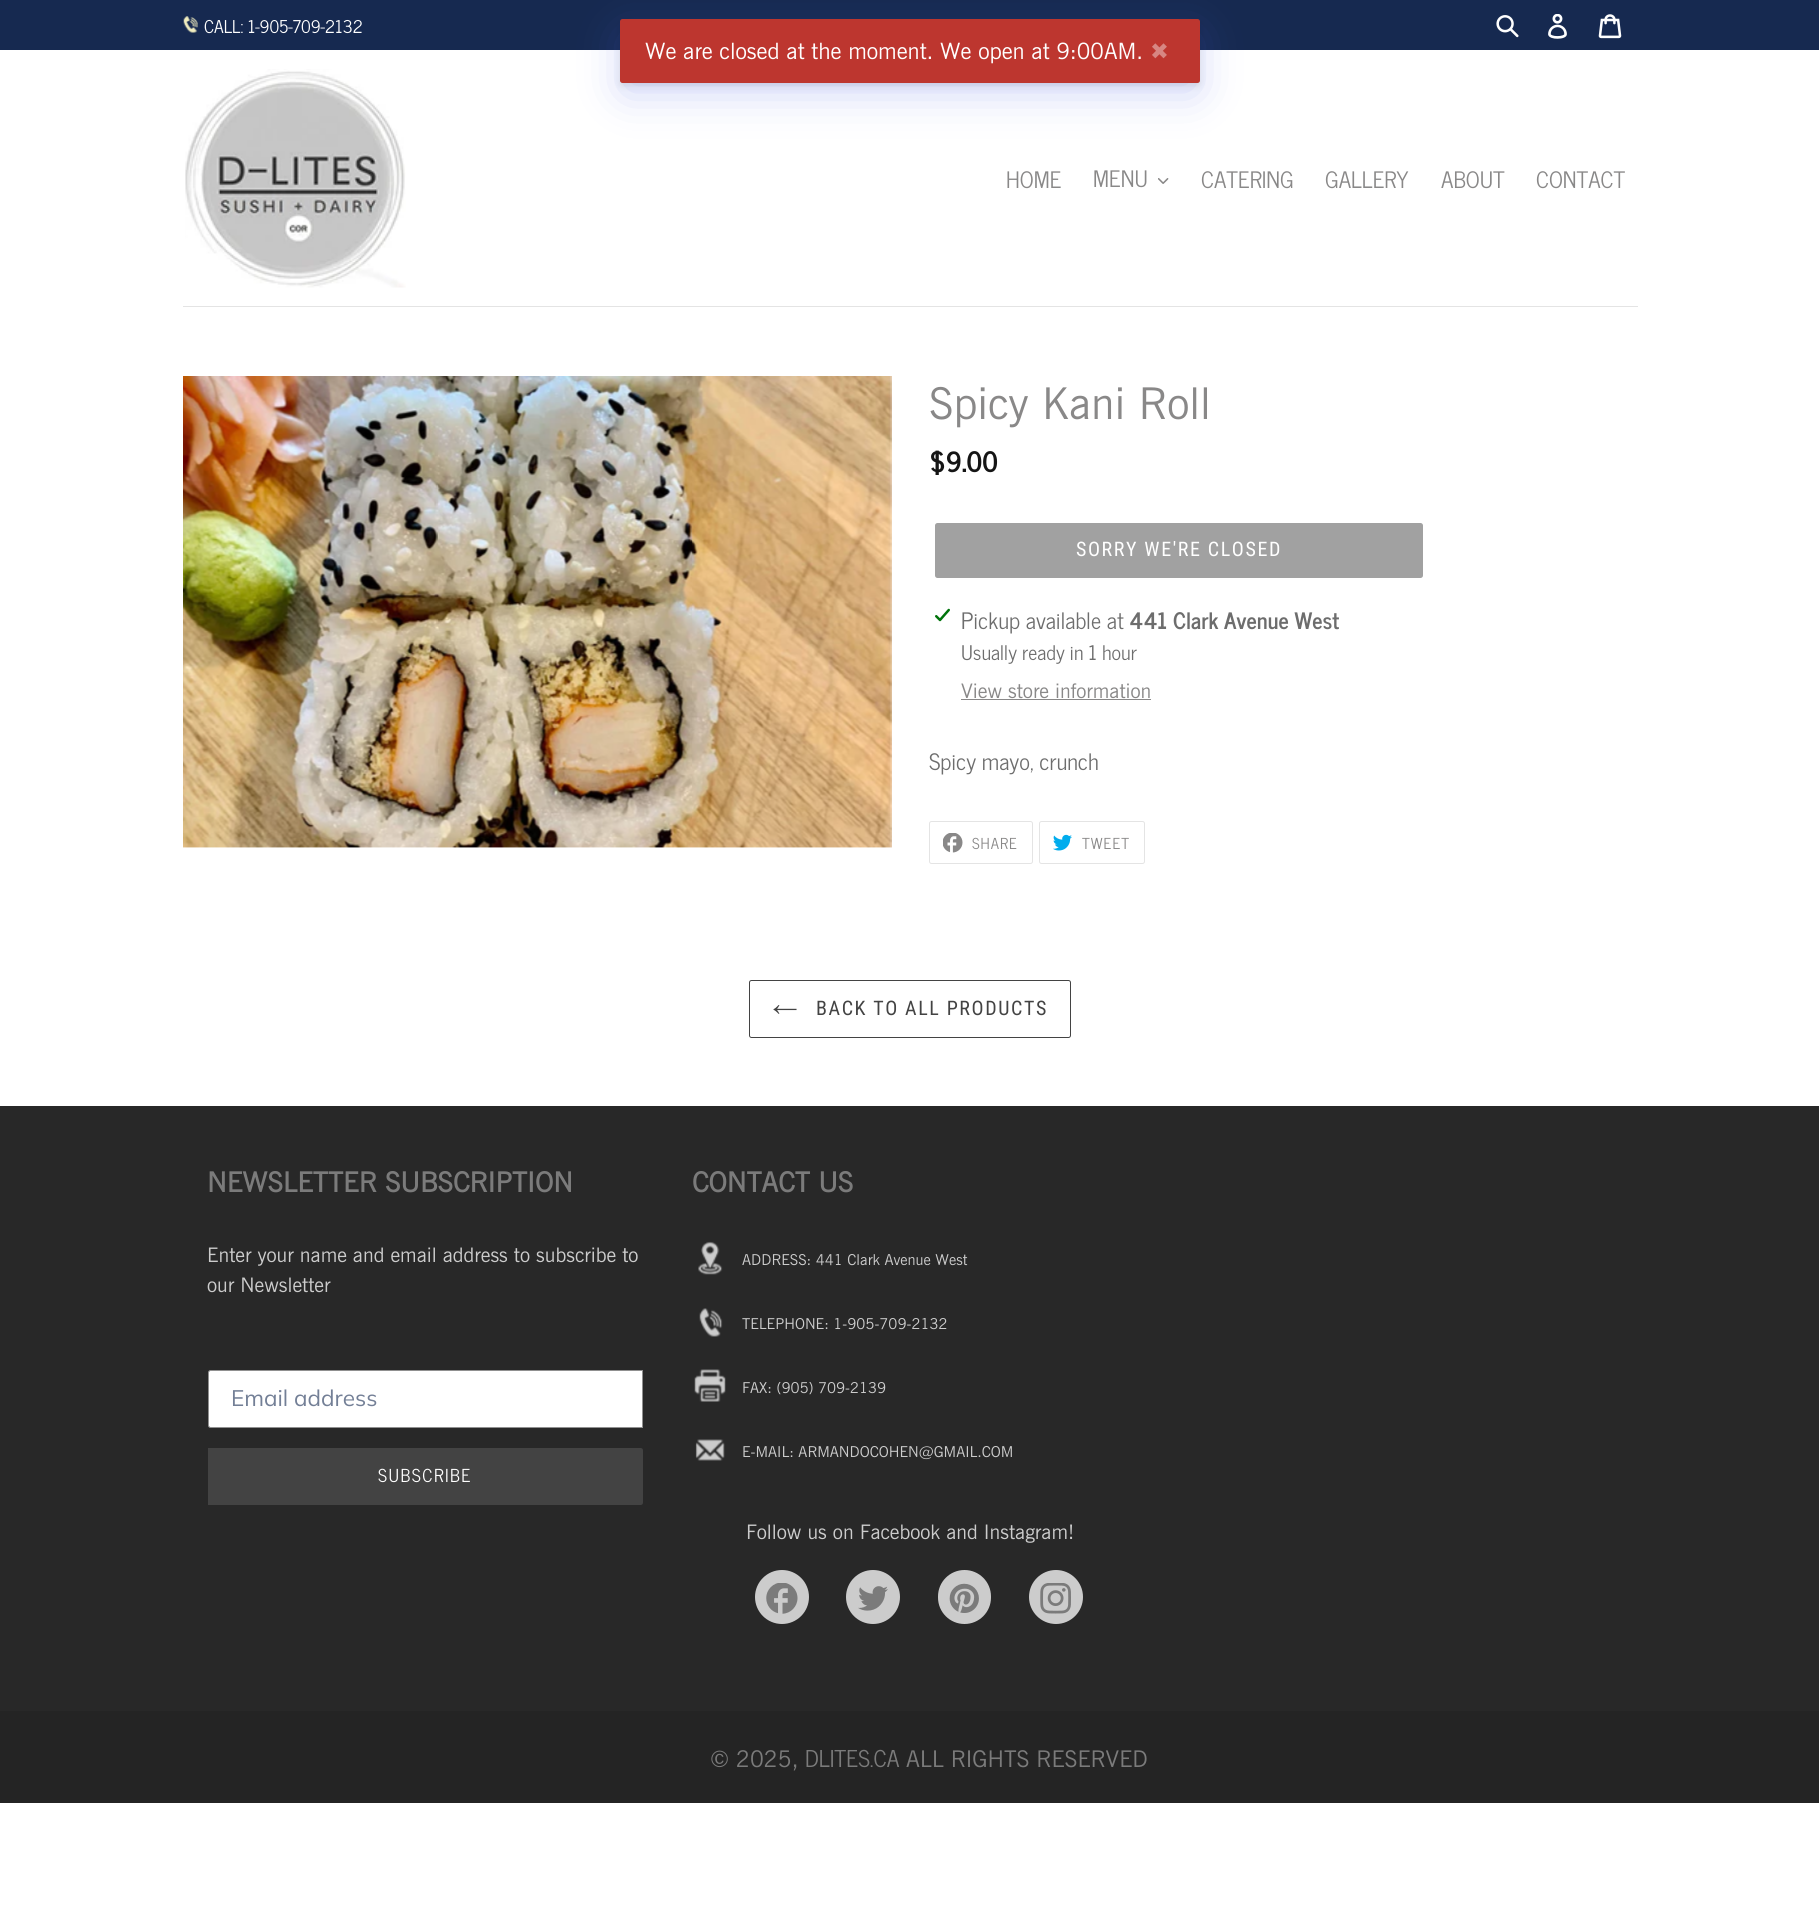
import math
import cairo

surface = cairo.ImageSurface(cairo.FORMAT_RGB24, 1819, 1909)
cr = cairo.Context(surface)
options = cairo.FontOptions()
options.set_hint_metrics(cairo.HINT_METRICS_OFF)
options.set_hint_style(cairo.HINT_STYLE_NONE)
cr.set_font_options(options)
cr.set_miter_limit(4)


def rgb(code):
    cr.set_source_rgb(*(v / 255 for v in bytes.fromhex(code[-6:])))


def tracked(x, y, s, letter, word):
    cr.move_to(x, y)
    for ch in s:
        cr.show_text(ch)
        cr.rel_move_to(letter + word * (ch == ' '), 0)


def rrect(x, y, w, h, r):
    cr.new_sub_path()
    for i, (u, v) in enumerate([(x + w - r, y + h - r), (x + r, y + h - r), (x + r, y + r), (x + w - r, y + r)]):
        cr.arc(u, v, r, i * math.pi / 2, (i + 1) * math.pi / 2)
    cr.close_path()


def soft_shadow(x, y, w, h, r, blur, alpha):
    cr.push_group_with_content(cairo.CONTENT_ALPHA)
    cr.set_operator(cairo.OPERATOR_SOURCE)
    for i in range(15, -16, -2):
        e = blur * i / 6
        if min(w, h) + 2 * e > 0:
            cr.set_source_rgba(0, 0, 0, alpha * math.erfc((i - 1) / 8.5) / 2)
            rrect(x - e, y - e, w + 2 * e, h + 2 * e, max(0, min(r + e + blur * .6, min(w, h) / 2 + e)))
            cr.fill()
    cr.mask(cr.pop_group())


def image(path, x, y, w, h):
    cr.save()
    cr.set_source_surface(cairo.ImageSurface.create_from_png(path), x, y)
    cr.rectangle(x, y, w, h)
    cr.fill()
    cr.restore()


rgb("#ffffff")
cr.paint()
rgb("#162950")
cr.rectangle(0, 0, 1819, 50)
cr.fill()
image("img/1.png", 183, 16, 15, 17)
image("img/2.png", 1496, 15, 23, 23)
image("img/3.png", 1548, 14, 19, 25)
image("img/4.png", 1598, 14, 24, 25)
rgb("#e4e4e4")
cr.rectangle(183, 306, 1455, 1)
cr.fill()
image("img/5.png", 185, 69, 221, 219)
image("img/6.png", 1158, 178, 11, 6)
rgb("#4d60e8")
soft_shadow(625, 36, 570, 54, 0, 22.5, 0.3)
rgb("#000000")
soft_shadow(621, 24, 578, 61, 1, 4, 0.12)
rgb("#bd362f")
rrect(620, 19, 580, 64, 2.5)
cr.fill()
image("img/7.png", 183, 376, 709, 472)
rgb("#a1a1a1")
rrect(935, 523, 488, 55, 2.5)
cr.fill()
image("img/8.png", 935, 608, 15, 14)
rgb("#898888")
cr.rectangle(961, 699, 190, 1)
cr.fill()
rrect(929.5, 821.5, 103, 42, 2)
rgb("#e4e4e4")
cr.set_line_width(1)
cr.stroke()
image("img/9.png", 943, 833, 20, 20)
rrect(1039.5, 821.5, 105, 42, 2)
cr.stroke()
image("img/10.png", 1053, 834, 19, 17)
rrect(749.5, 980.5, 321, 57, 2)
rgb("#434343")
cr.stroke()
image("img/11.png", 773, 1005, 24, 9)
rgb("#282828")
cr.rectangle(0, 1106, 1819, 605)
cr.fill()
rgb("#ffffff")
cr.new_path()
cr.move_to(210.5, 1370.5)
cr.line_to(642.5, 1370.5)
cr.line_to(642.5, 1427.5)
cr.line_to(210.5, 1427.5)
cr.curve_to(209.5, 1427.5, 208.5, 1426.5, 208.5, 1425.5)
cr.line_to(208.5, 1372.5)
cr.curve_to(208.5, 1371.5, 209.5, 1370.5, 210.5, 1370.5)
cr.close_path()
cr.fill_preserve()
rgb("#909090")
cr.stroke()
rgb("#434343")
cr.new_path()
cr.move_to(208, 1448)
cr.line_to(640.5, 1448)
cr.curve_to(642, 1448, 643, 1449, 643, 1450.5)
cr.line_to(643, 1502.5)
cr.curve_to(643, 1504, 642, 1505, 640.5, 1505)
cr.line_to(208, 1505)
cr.close_path()
cr.fill()
image("img/12.png", 698, 1241, 25, 34)
image("img/13.png", 699, 1308, 24, 29)
image("img/14.png", 694, 1369, 32, 33)
image("img/15.png", 695, 1439, 30, 22)
rgb("#cccccc")
cr.arc(782, 1597, 27, 0, 2 * math.pi)
cr.fill()
image("img/16.png", 766, 1583, 32, 31)
cr.arc(873, 1597, 27, 0, 2 * math.pi)
cr.fill()
image("img/17.png", 858, 1586, 30, 25)
rrect(938, 1570, 53, 54, 26.5)
cr.fill()
image("img/18.png", 949, 1583, 30, 30)
cr.arc(1056, 1597, 27, 0, 2 * math.pi)
cr.fill()
image("img/19.png", 1040, 1583, 31, 31)
rgb("#242424")
cr.rectangle(0, 1711, 1819, 92)
cr.fill()
cr.select_font_face("News Cycle")
cr.set_font_size(17.5)
rgb("#ffffff")
cr.move_to(204, 33)
cr.show_text("CALL: 1-905-709-2132")
cr.set_font_size(22.5)
rgb("#898888")
for x, y, s in [
    (1006, 188, "HOME"),
    (1093, 187, "MENU"),
    (1201, 188, "CATERING"),
    (1325, 188, "GALLERY"),
    (1441, 188, "ABOUT"),
    (1536, 188, "CONTACT"),
]:
    cr.move_to(x, y)
    cr.show_text(s)
cr.select_font_face("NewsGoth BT")
rgb("#ffffff")
cr.move_to(645, 59)
cr.show_text("We are closed at the moment. We open at 9:00AM.")
cr.select_font_face("DejaVu Sans")
rgb("#d78682")
cr.move_to(1150, 59)
cr.show_text("✖")
cr.select_font_face("NewsGoth BT")
cr.set_font_size(43.75)
rgb("#898888")
cr.move_to(929, 419)
cr.show_text("Spicy Kani Roll")
cr.select_font_face("News Cycle", cairo.FONT_SLANT_NORMAL, cairo.FONT_WEIGHT_BOLD)
cr.set_font_size(28)
rgb("#151515")
cr.move_to(929, 472)
cr.show_text("$9.00")
cr.select_font_face("Roboto Condensed")
cr.set_font_size(20)
rgb("#ffffff")
tracked(1076, 556, "SORRY WE'RE CLOSED", 1.6, 0)
cr.select_font_face("News Cycle")
cr.set_font_size(22.5)
rgb("#6d6d6d")
cr.move_to(961, 629)
cr.show_text("Pickup available at")
cr.select_font_face("News Cycle", cairo.FONT_SLANT_NORMAL, cairo.FONT_WEIGHT_BOLD)
cr.move_to(1129, 629)
cr.show_text("441 Clark Avenue West")
cr.select_font_face("News Cycle")
cr.set_font_size(20)
cr.move_to(961, 660)
cr.show_text("Usually ready in 1 hour")
cr.select_font_face("NewsGoth BT")
rgb("#898888")
cr.move_to(961, 698)
cr.show_text("View store information")
cr.select_font_face("News Cycle")
cr.set_font_size(22.5)
rgb("#6d6d6d")
cr.move_to(929, 770)
cr.show_text("Spicy mayo, crunch")
cr.set_font_size(15)
rgb("#898888")
tracked(972, 849, "SHARE", 1, 0)
tracked(1082, 849, "TWEET", 1, 0)
cr.select_font_face("Roboto Condensed")
cr.set_font_size(20)
rgb("#434343")
tracked(816, 1015, "BACK TO ALL PRODUCTS", 1.6, 0)
cr.select_font_face("NewsGoth BT", cairo.FONT_SLANT_NORMAL, cairo.FONT_WEIGHT_BOLD)
cr.set_font_size(27.5)
rgb("#7b7b7b")
cr.move_to(207, 1192)
cr.show_text("NEWSLETTER SUBSCRIPTION")
cr.select_font_face("NewsGoth BT")
cr.set_font_size(20)
rgb("#cccccc")
cr.move_to(207, 1262)
cr.show_text("Enter your name and email address to subscribe to")
cr.move_to(207, 1292)
cr.show_text("our Newsletter")
cr.select_font_face("Muli")
cr.set_font_size(22.5)
rgb("#737f96")
cr.move_to(231, 1406)
cr.show_text("Email address")
cr.select_font_face("News Cycle")
cr.set_font_size(17.75)
rgb("#ffffff")
tracked(378, 1482, "SUBSCRIBE", 1.5, 0)
cr.select_font_face("NewsGoth BT", cairo.FONT_SLANT_NORMAL, cairo.FONT_WEIGHT_BOLD)
cr.set_font_size(27.5)
rgb("#7b7b7b")
cr.move_to(692, 1192)
cr.show_text("CONTACT US")
cr.select_font_face("NewsGoth BT")
cr.set_font_size(15)
rgb("#cccccc")
for x, y, s in [
    (742, 1265, "ADDRESS: 441 Clark Avenue West"),
    (742, 1329, "TELEPHONE: 1-905-709-2132"),
    (742, 1393, "FAX: (905) 709-2139"),
    (742, 1457, "E-MAIL: ARMANDOCOHEN@GMAIL.COM"),
]:
    cr.move_to(x, y)
    cr.show_text(s)
cr.set_font_size(20)
cr.move_to(746, 1539)
cr.show_text("Follow us on Facebook and Instagram!")
cr.set_font_size(23)
rgb("#7b7b7b")
cr.move_to(710, 1767)
cr.show_text("© 2025,")
cr.select_font_face("News Cycle")
cr.move_to(805, 1767)
cr.show_text("DLITES.CA")
cr.select_font_face("NewsGoth BT")
cr.move_to(906, 1767)
cr.show_text("ALL RIGHTS RESERVED")
surface.write_to_png("page.png")
